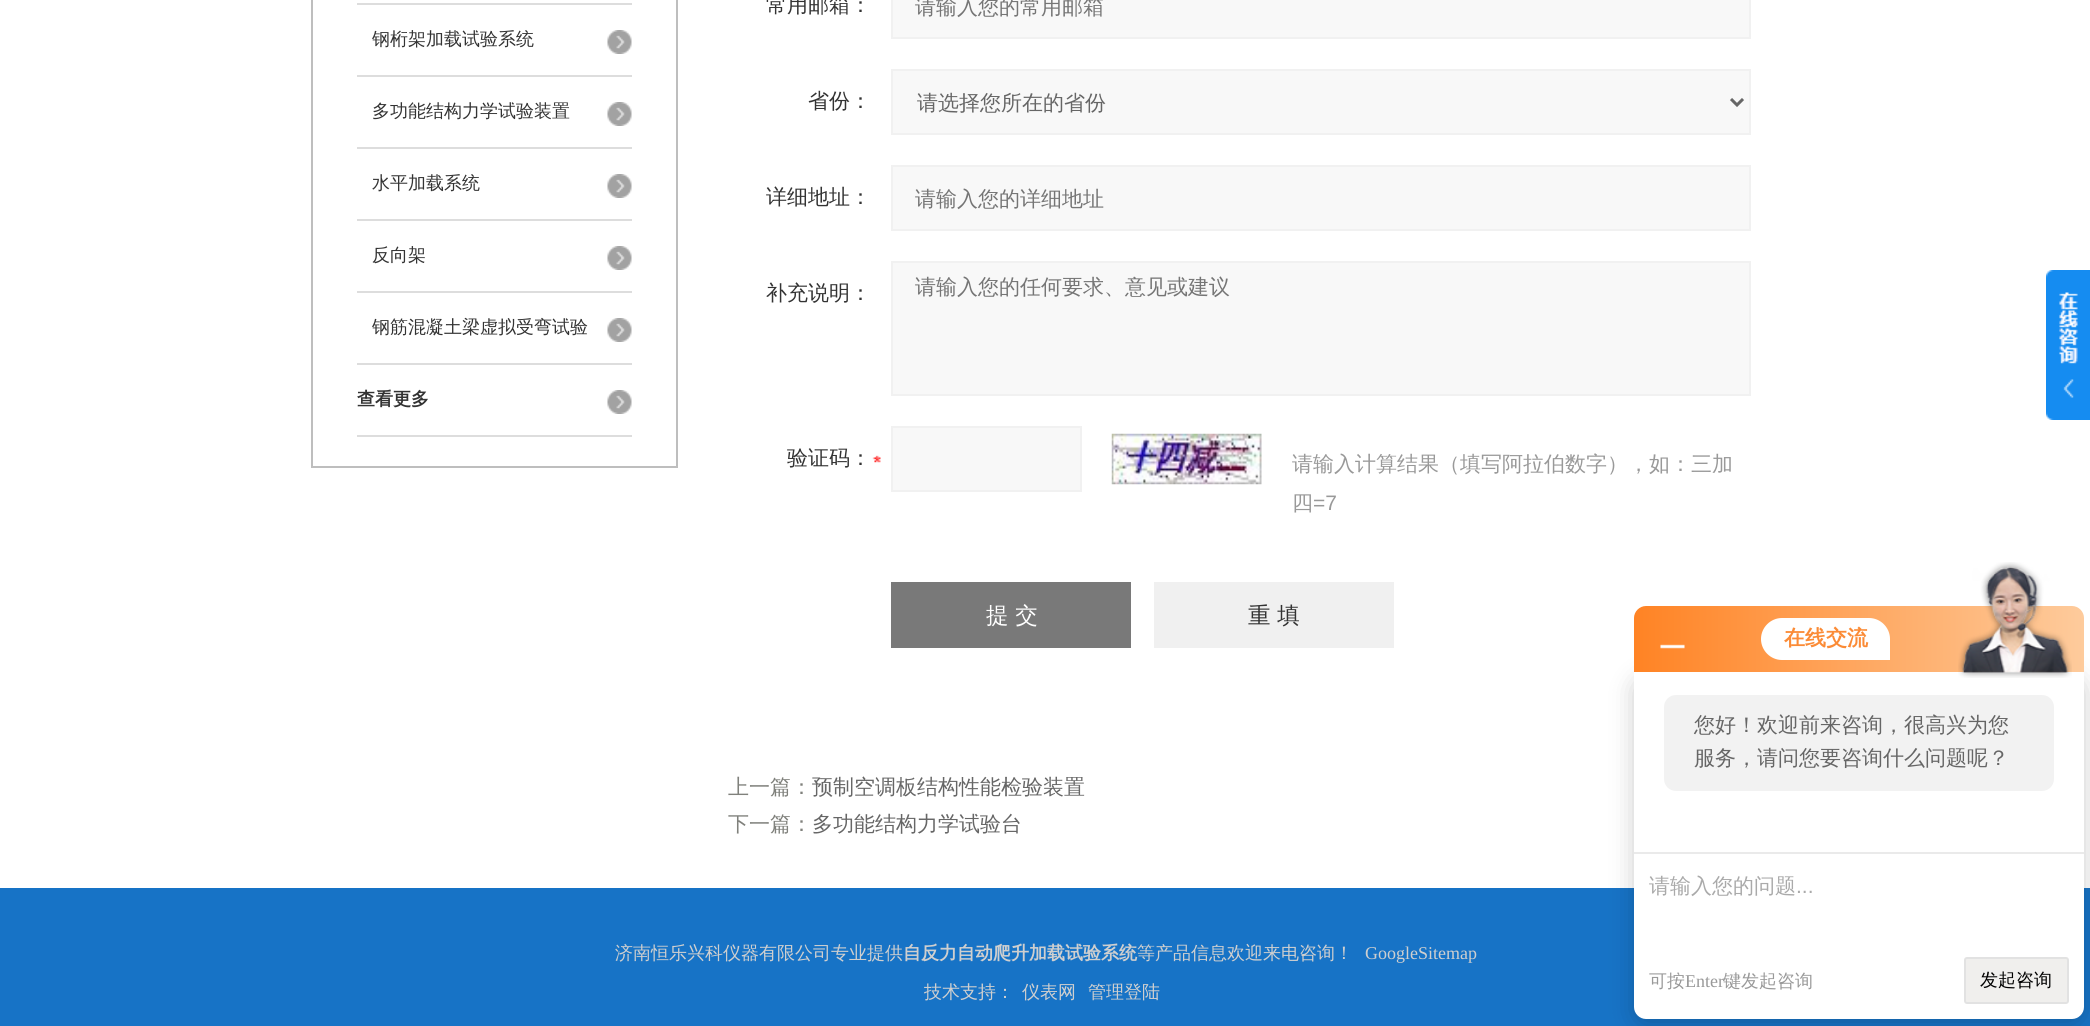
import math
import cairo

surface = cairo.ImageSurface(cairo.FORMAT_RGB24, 2090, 1026)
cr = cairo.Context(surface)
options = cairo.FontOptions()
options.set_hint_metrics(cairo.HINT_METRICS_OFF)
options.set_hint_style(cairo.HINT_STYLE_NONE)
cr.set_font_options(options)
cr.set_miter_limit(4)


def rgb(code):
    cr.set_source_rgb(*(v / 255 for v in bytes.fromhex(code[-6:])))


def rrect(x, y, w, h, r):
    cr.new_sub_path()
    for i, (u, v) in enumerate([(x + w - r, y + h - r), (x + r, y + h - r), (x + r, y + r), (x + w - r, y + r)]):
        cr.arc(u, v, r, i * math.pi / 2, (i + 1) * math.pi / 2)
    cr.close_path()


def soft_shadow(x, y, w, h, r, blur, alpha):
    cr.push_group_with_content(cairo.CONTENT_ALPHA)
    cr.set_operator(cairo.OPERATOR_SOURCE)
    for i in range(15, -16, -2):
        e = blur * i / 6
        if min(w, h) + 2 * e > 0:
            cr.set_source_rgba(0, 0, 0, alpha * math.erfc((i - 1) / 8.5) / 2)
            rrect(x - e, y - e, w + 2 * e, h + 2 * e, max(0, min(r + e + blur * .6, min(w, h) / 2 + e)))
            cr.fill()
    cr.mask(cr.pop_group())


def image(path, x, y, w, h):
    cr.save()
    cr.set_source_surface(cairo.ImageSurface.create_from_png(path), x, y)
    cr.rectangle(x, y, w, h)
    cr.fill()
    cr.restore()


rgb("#ffffff")
cr.paint()
cr.rectangle(312, -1, 365, 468)
rgb("#bebebe")
cr.stroke()
rgb("#dddddd")
cr.rectangle(357, 3, 275, 2)
cr.fill()
image("img/1.png", 607, 30, 25, 24)
cr.rectangle(357, 75, 275, 2)
cr.fill()
image("img/1.png", 607, 102, 25, 24)
cr.rectangle(357, 147, 275, 2)
cr.fill()
image("img/1.png", 607, 174, 25, 24)
cr.rectangle(357, 219, 275, 2)
cr.fill()
image("img/1.png", 607, 246, 25, 24)
cr.rectangle(357, 291, 275, 2)
cr.fill()
image("img/1.png", 607, 318, 25, 24)
cr.rectangle(357, 363, 275, 2)
cr.fill()
image("img/1.png", 607, 390, 25, 24)
cr.rectangle(357, 435, 275, 2)
cr.fill()
rgb("#f8f8f8")
cr.rectangle(892, -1, 858, 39)
cr.fill_preserve()
rgb("#f1f1f1")
cr.stroke()
rgb("#f8f8f8")
cr.rectangle(892, 70, 858, 64)
cr.fill_preserve()
rgb("#f1f1f1")
cr.stroke()
cr.new_path()
cr.move_to(1731, 99)
cr.line_to(1737, 105)
cr.line_to(1743, 99)
rgb("#666666")
cr.set_line_width(3)
cr.stroke()
rgb("#f8f8f8")
cr.rectangle(892, 166, 858, 64)
cr.fill_preserve()
rgb("#f1f1f1")
cr.set_line_width(2)
cr.stroke()
rgb("#f8f8f8")
cr.rectangle(892, 262, 858, 133)
cr.fill_preserve()
rgb("#f1f1f1")
cr.stroke()
image("img/2.png", 872, 455, 9, 8)
rgb("#f8f8f8")
cr.rectangle(892, 427, 189, 64)
cr.fill_preserve()
rgb("#f1f1f1")
cr.stroke()
image("img/3.png", 1111, 433, 151, 52)
rgb("#797979")
cr.rectangle(891, 582, 240, 66)
cr.fill()
rgb("#f0f0f0")
cr.rectangle(1154, 582, 240, 66)
cr.fill()
image("img/4.png", 2046, 270, 44, 150)
rgb("#1773c6")
cr.rectangle(0, 888, 2090, 138)
cr.fill()
rgb("#000000")
soft_shadow(1634, 678, 450, 347, 12, 12, 0.2)
gradient = cairo.LinearGradient(1634, 639, 2084, 639)
gradient.add_color_stop_rgba(0, 1, 0.514, 0.141, 1)
gradient.add_color_stop_rgba(1, 0.996, 0.796, 0.612, 1)
cr.set_source(gradient)
cr.new_path()
cr.move_to(1646, 606)
cr.line_to(2072, 606)
cr.curve_to(2078.5, 606, 2084, 611.5, 2084, 618)
cr.line_to(2084, 672)
cr.line_to(1634, 672)
cr.line_to(1634, 618)
cr.curve_to(1634, 611.5, 1639.5, 606, 1646, 606)
cr.close_path()
cr.fill()
image("img/5.png", 1660, 644, 25, 5)
rgb("#ffffff")
cr.new_path()
cr.move_to(1782, 618)
cr.line_to(1869, 618)
cr.curve_to(1880.5, 618, 1890, 627.5, 1890, 639)
cr.line_to(1890, 660)
cr.line_to(1782, 660)
cr.curve_to(1770.5, 660, 1761, 650.5, 1761, 639)
cr.curve_to(1761, 627.5, 1770.5, 618, 1782, 618)
cr.close_path()
cr.fill()
cr.new_path()
cr.move_to(1634, 672)
cr.line_to(2084, 672)
cr.line_to(2084, 1007)
cr.curve_to(2084, 1013.5, 2078.5, 1019, 2072, 1019)
cr.line_to(1646, 1019)
cr.curve_to(1639.5, 1019, 1634, 1013.5, 1634, 1007)
cr.close_path()
cr.fill()
image("img/6.png", 1958, 562, 114, 116)
rgb("#f2f2f2")
rrect(1664, 695, 390, 96, 12)
cr.fill()
rgb("#eaeaea")
cr.rectangle(1634, 852, 450, 2)
cr.fill()
rgb("#f0efed")
rrect(1965, 958, 103, 45, 2)
cr.fill_preserve()
rgb("#e2e2e2")
cr.stroke()
cr.select_font_face("WenQuanYi Zen Hei Medium")
cr.set_font_size(18)
rgb("#333333")
for x, y, s in [
    (372, 45, "钢桁架加载试验系统"),
    (372, 117, "多功能结构力学试验装置"),
    (372, 189, "水平加载系统"),
    (372, 261, "反向架"),
    (372, 333, "钢筋混凝土梁虚拟受弯试验"),
]:
    cr.move_to(x, y)
    cr.show_text(s)
cr.select_font_face("WenQuanYi Zen Hei", cairo.FONT_SLANT_NORMAL, cairo.FONT_WEIGHT_BOLD)
cr.move_to(357, 405)
cr.show_text("查看更多")
cr.select_font_face("WenQuanYi Zen Hei Medium")
cr.set_font_size(21)
cr.move_to(766, 12)
cr.show_text("常用邮箱：")
rgb("#757575")
cr.move_to(915, 14)
cr.show_text("请输入您的常用邮箱")
rgb("#333333")
cr.move_to(808, 108)
cr.show_text("省份：")
rgb("#666666")
cr.move_to(917, 110)
cr.show_text("请选择您所在的省份")
rgb("#333333")
cr.move_to(766, 204)
cr.show_text("详细地址：")
rgb("#757575")
cr.move_to(915, 206)
cr.show_text("请输入您的详细地址")
rgb("#333333")
cr.move_to(766, 300)
cr.show_text("补充说明：")
rgb("#757575")
cr.move_to(915, 294)
cr.show_text("请输入您的任何要求、意见或建议")
rgb("#333333")
cr.move_to(787, 465)
cr.show_text("验证码：")
rgb("#999999")
cr.move_to(1292, 471)
cr.show_text("请输入计算结果（填写阿拉伯数字），如：三加")
cr.move_to(1292, 510)
cr.show_text("四")
cr.select_font_face("Liberation Sans")
cr.move_to(1313, 510)
cr.show_text("=7")
cr.select_font_face("WenQuanYi Zen Hei Medium")
cr.set_font_size(22.5)
rgb("#ffffff")
cr.move_to(986, 623)
cr.show_text("提 交")
rgb("#333333")
cr.move_to(1248, 623)
cr.show_text("重 填")
cr.set_font_size(21)
rgb("#80817c")
cr.move_to(728, 794)
cr.show_text("上一篇：")
rgb("#666666")
cr.move_to(812, 794)
cr.show_text("预制空调板结构性能检验装置")
rgb("#80817c")
cr.move_to(728, 831)
cr.show_text("下一篇：")
rgb("#666666")
cr.move_to(812, 831)
cr.show_text("多功能结构力学试验台")
cr.set_font_size(18)
rgb("#cfcfcf")
cr.move_to(615, 959)
cr.show_text("济南恒乐兴科仪器有限公司专业提供")
cr.select_font_face("WenQuanYi Zen Hei", cairo.FONT_SLANT_NORMAL, cairo.FONT_WEIGHT_BOLD)
cr.move_to(903, 959)
cr.show_text("自反力自动爬升加载试验系统")
cr.select_font_face("WenQuanYi Zen Hei Medium")
cr.move_to(1137, 959)
cr.show_text("等产品信息欢迎来电咨询！")
cr.select_font_face("Liberation Serif")
cr.move_to(1365, 959)
cr.show_text("GoogleSitemap")
cr.select_font_face("WenQuanYi Zen Hei Medium")
for x, y, s in [
    (924, 998, "技术支持："),
    (1022, 998, "仪表网"),
    (1088, 998, "管理登陆"),
]:
    cr.move_to(x, y)
    cr.show_text(s)
cr.select_font_face("WenQuanYi Zen Hei", cairo.FONT_SLANT_NORMAL, cairo.FONT_WEIGHT_BOLD)
cr.set_font_size(21)
rgb("#fb8b36")
cr.move_to(1784, 645)
cr.show_text("在线交流")
cr.select_font_face("WenQuanYi Zen Hei Medium")
rgb("#666666")
cr.move_to(1694, 732)
cr.show_text("您好！欢迎前来咨询，很高兴为您")
cr.move_to(1694, 765)
cr.show_text("服务，请问您要咨询什么问题呢？")
rgb("#aaaaaa")
cr.move_to(1649, 893)
cr.show_text("请输入您的问题")
cr.select_font_face("Liberation Sans")
cr.move_to(1796, 893)
cr.show_text("...")
cr.select_font_face("WenQuanYi Zen Hei Medium")
cr.set_font_size(18)
rgb("#999999")
cr.move_to(1649, 987)
cr.show_text("可按")
cr.select_font_face("Liberation Serif")
cr.move_to(1685, 987)
cr.show_text("Enter")
cr.select_font_face("WenQuanYi Zen Hei Medium")
cr.move_to(1723, 987)
cr.show_text("键发起咨询")
rgb("#000000")
cr.move_to(1980, 986)
cr.show_text("发起咨询")
surface.write_to_png("page.png")
